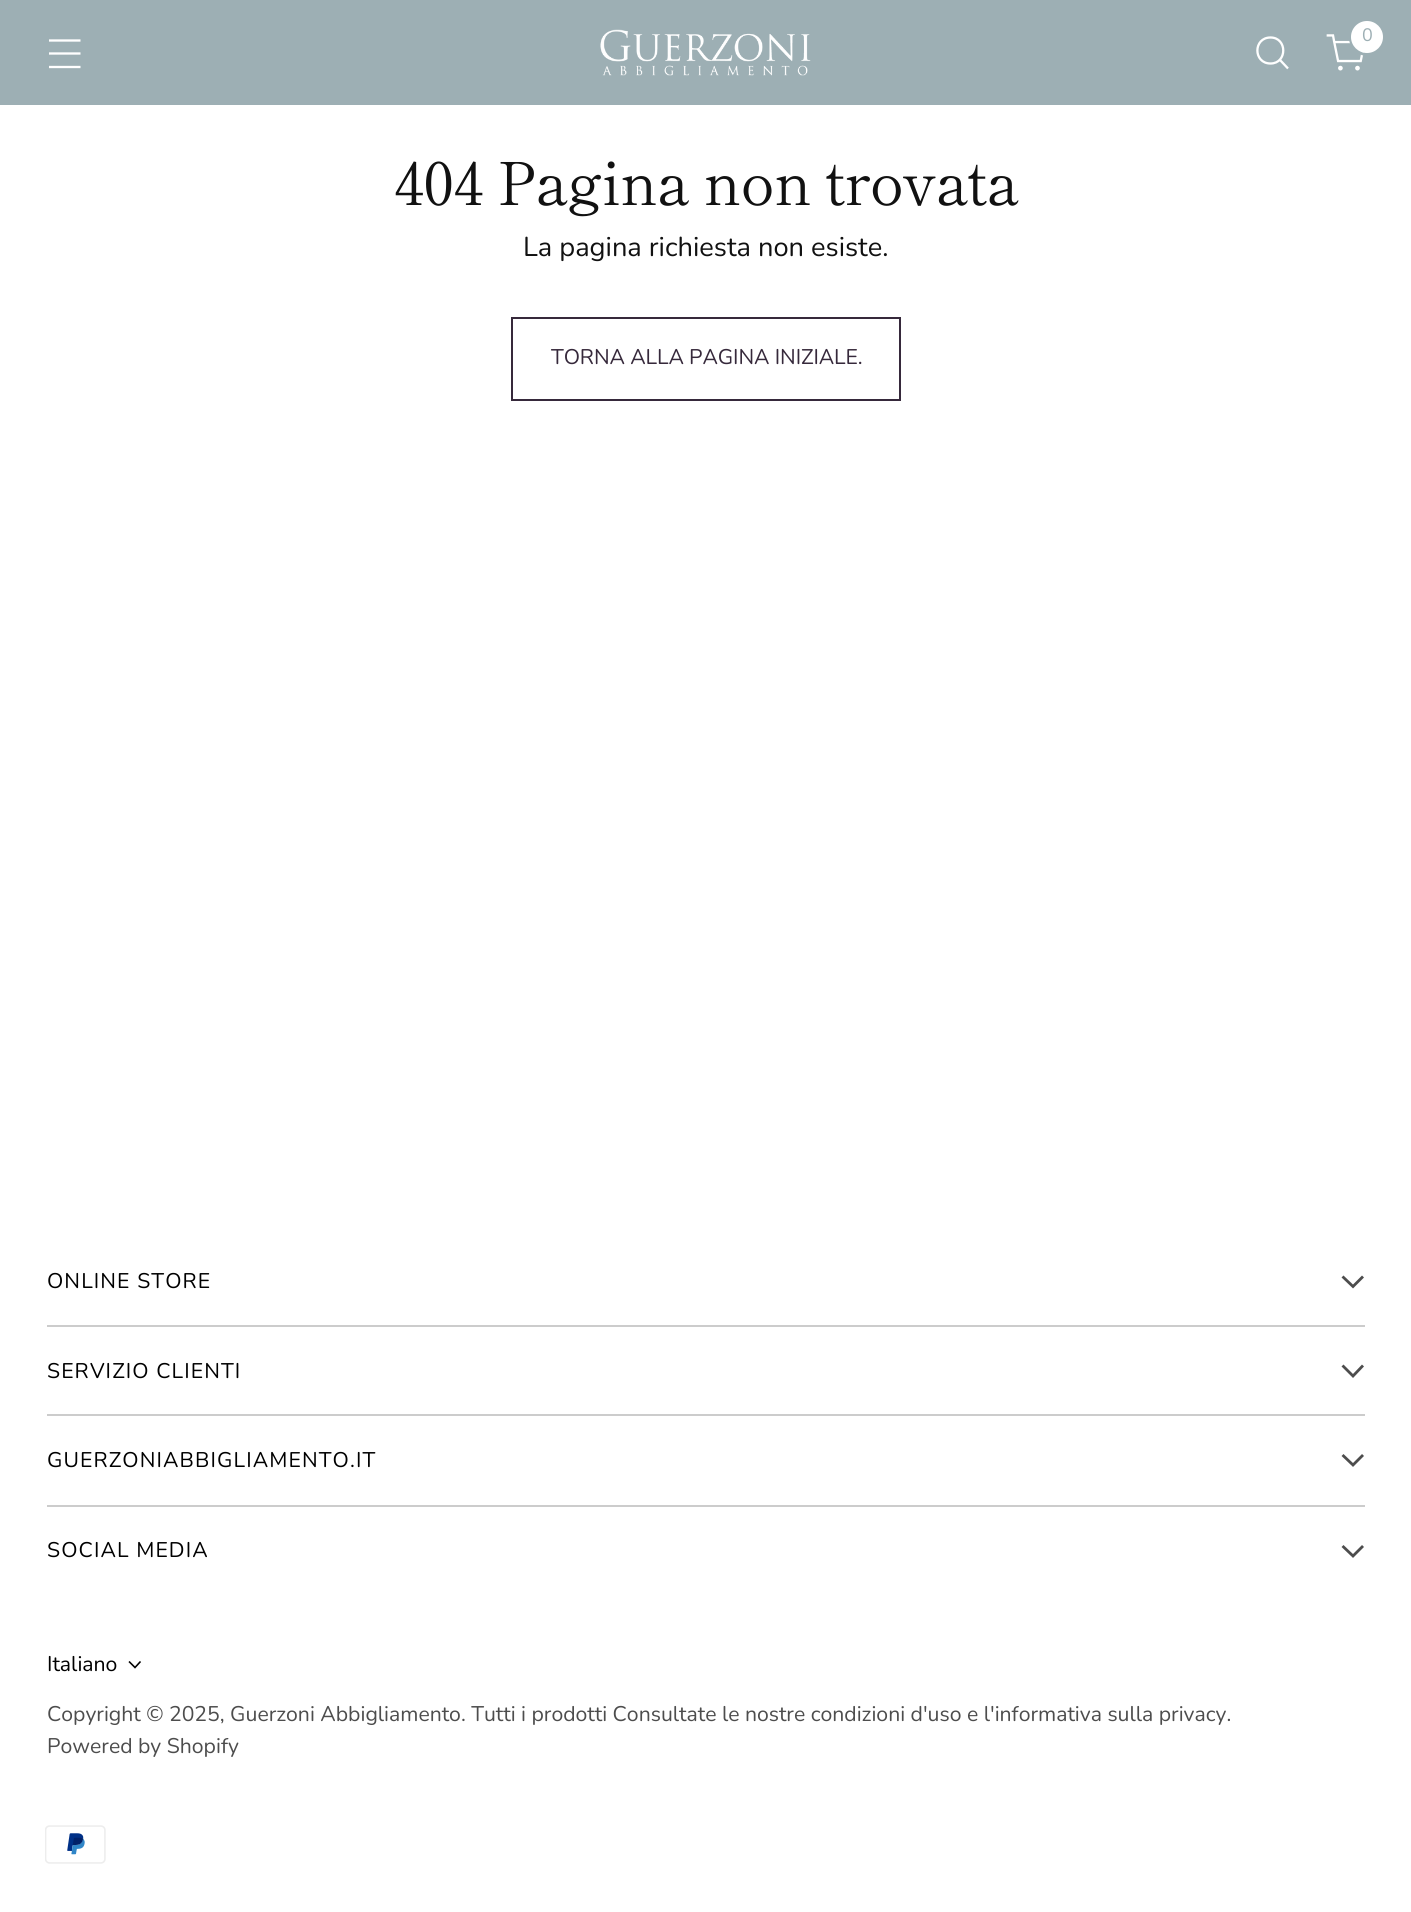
import math
import cairo

surface = cairo.ImageSurface(cairo.FORMAT_RGB24, 1411, 1912)
cr = cairo.Context(surface)
options = cairo.FontOptions()
options.set_hint_metrics(cairo.HINT_METRICS_OFF)
options.set_hint_style(cairo.HINT_STYLE_NONE)
cr.set_font_options(options)
cr.set_miter_limit(4)


def rgb(code):
    cr.set_source_rgb(*(v / 255 for v in bytes.fromhex(code[-6:])))


def tracked(x, y, s, letter, word):
    cr.move_to(x, y)
    for ch in s:
        cr.show_text(ch)
        cr.rel_move_to(letter + word * (ch == ' '), 0)


def image(path, x, y, w, h):
    cr.save()
    cr.set_source_surface(cairo.ImageSurface.create_from_png(path), x, y)
    cr.rectangle(x, y, w, h)
    cr.fill()
    cr.restore()


rgb("#ffffff")
cr.paint()
rgb("#9dafb4")
cr.rectangle(0, 0, 1411, 105)
cr.fill()
cr.new_path()
cr.move_to(49, 53.5)
cr.line_to(80.5, 53.5)
cr.move_to(49, 40.5)
cr.line_to(80.5, 40.5)
cr.move_to(49, 67)
cr.line_to(80.5, 67)
rgb("#ffffff")
cr.set_line_width(2.3)
cr.stroke()
image("img/1.png", 600, 29, 211, 47)
cr.new_path()
cr.move_to(1270.5, 63.5)
cr.curve_to(1287.5, 63.5, 1287.5, 37.5, 1270.5, 37.5)
cr.curve_to(1253, 37.5, 1253, 63.5, 1270.5, 63.5)
cr.close_path()
cr.set_line_cap(cairo.LINE_CAP_ROUND)
cr.stroke()
cr.new_path()
cr.move_to(1280, 60)
cr.line_to(1288, 68.5)
cr.set_line_cap(cairo.LINE_CAP_BUTT)
cr.stroke()
image("img/2.png", 1326, 34, 38, 37)
cr.arc(1367.5, 37.5, 17, 0, 2 * math.pi)
rgb("#9dafb4")
cr.set_line_width(3)
cr.stroke()
rgb("#ffffff")
cr.arc(1367, 37, 16, 0, 2 * math.pi)
cr.fill()
cr.rectangle(512, 318, 388, 82)
rgb("#36293b")
cr.set_line_width(2)
cr.stroke()
rgb("#cccccc")
cr.rectangle(47, 1325, 1318, 2)
cr.fill()
cr.new_path()
cr.move_to(1342.5, 1276.5)
cr.line_to(1353, 1286.5)
cr.line_to(1363, 1276.5)
rgb("#4d4d4d")
cr.set_line_width(2.8)
cr.stroke()
rgb("#cccccc")
cr.rectangle(47, 1414, 1318, 2)
cr.fill()
cr.new_path()
cr.move_to(1342.5, 1365.5)
cr.line_to(1353, 1376)
cr.line_to(1363, 1365.5)
rgb("#4d4d4d")
cr.stroke()
rgb("#cccccc")
cr.rectangle(47, 1505, 1318, 2)
cr.fill()
cr.new_path()
cr.move_to(1342.5, 1455)
cr.line_to(1353, 1465)
cr.line_to(1363, 1455)
rgb("#4d4d4d")
cr.stroke()
cr.new_path()
cr.move_to(1342.5, 1546)
cr.line_to(1353, 1556)
cr.line_to(1363, 1546)
cr.stroke()
cr.new_path()
cr.move_to(129, 1661.5)
cr.line_to(135, 1667.5)
cr.line_to(140.5, 1661.5)
rgb("#000000")
cr.set_line_width(1.6)
cr.stroke()
image("img/3.png", 45, 1825, 61, 39)
cr.select_font_face("Nunito")
cr.set_font_size(18)
rgb("#9dafb4")
cr.move_to(1362, 41)
cr.show_text("0")
cr.select_font_face("Shippori Mincho")
cr.set_font_size(59.25)
rgb("#111111")
tracked(394, 205, "404 Pagina non trovata", -0.6, 0)
cr.select_font_face("Nunito")
cr.set_font_size(27.25)
cr.move_to(523, 256)
cr.show_text("La pagina richiesta non esiste.")
cr.set_font_size(21.2)
rgb("#36293b")
tracked(551, 364, "TORNA ALLA PAGINA INIZIALE.", -0.1, 0)
rgb("#000000")
for x, y, s in [
    (47, 1288, "ONLINE STORE"),
    (47, 1378, "SERVIZIO CLIENTI"),
    (47, 1467, "GUERZONIABBIGLIAMENTO.IT"),
    (47, 1557, "SOCIAL MEDIA"),
]:
    tracked(x, y, s, 1.1, 0)
cr.move_to(47, 1671)
cr.show_text("Italiano")
rgb("#4d4d4d")
cr.move_to(47, 1721)
cr.show_text("Copyright © 2025, Guerzoni Abbigliamento. Tutti i prodotti Consultate le nostre condizioni d'uso e l'informativa sulla privacy.")
cr.move_to(47, 1753)
cr.show_text("Powered by Shopify")
surface.write_to_png("page.png")
